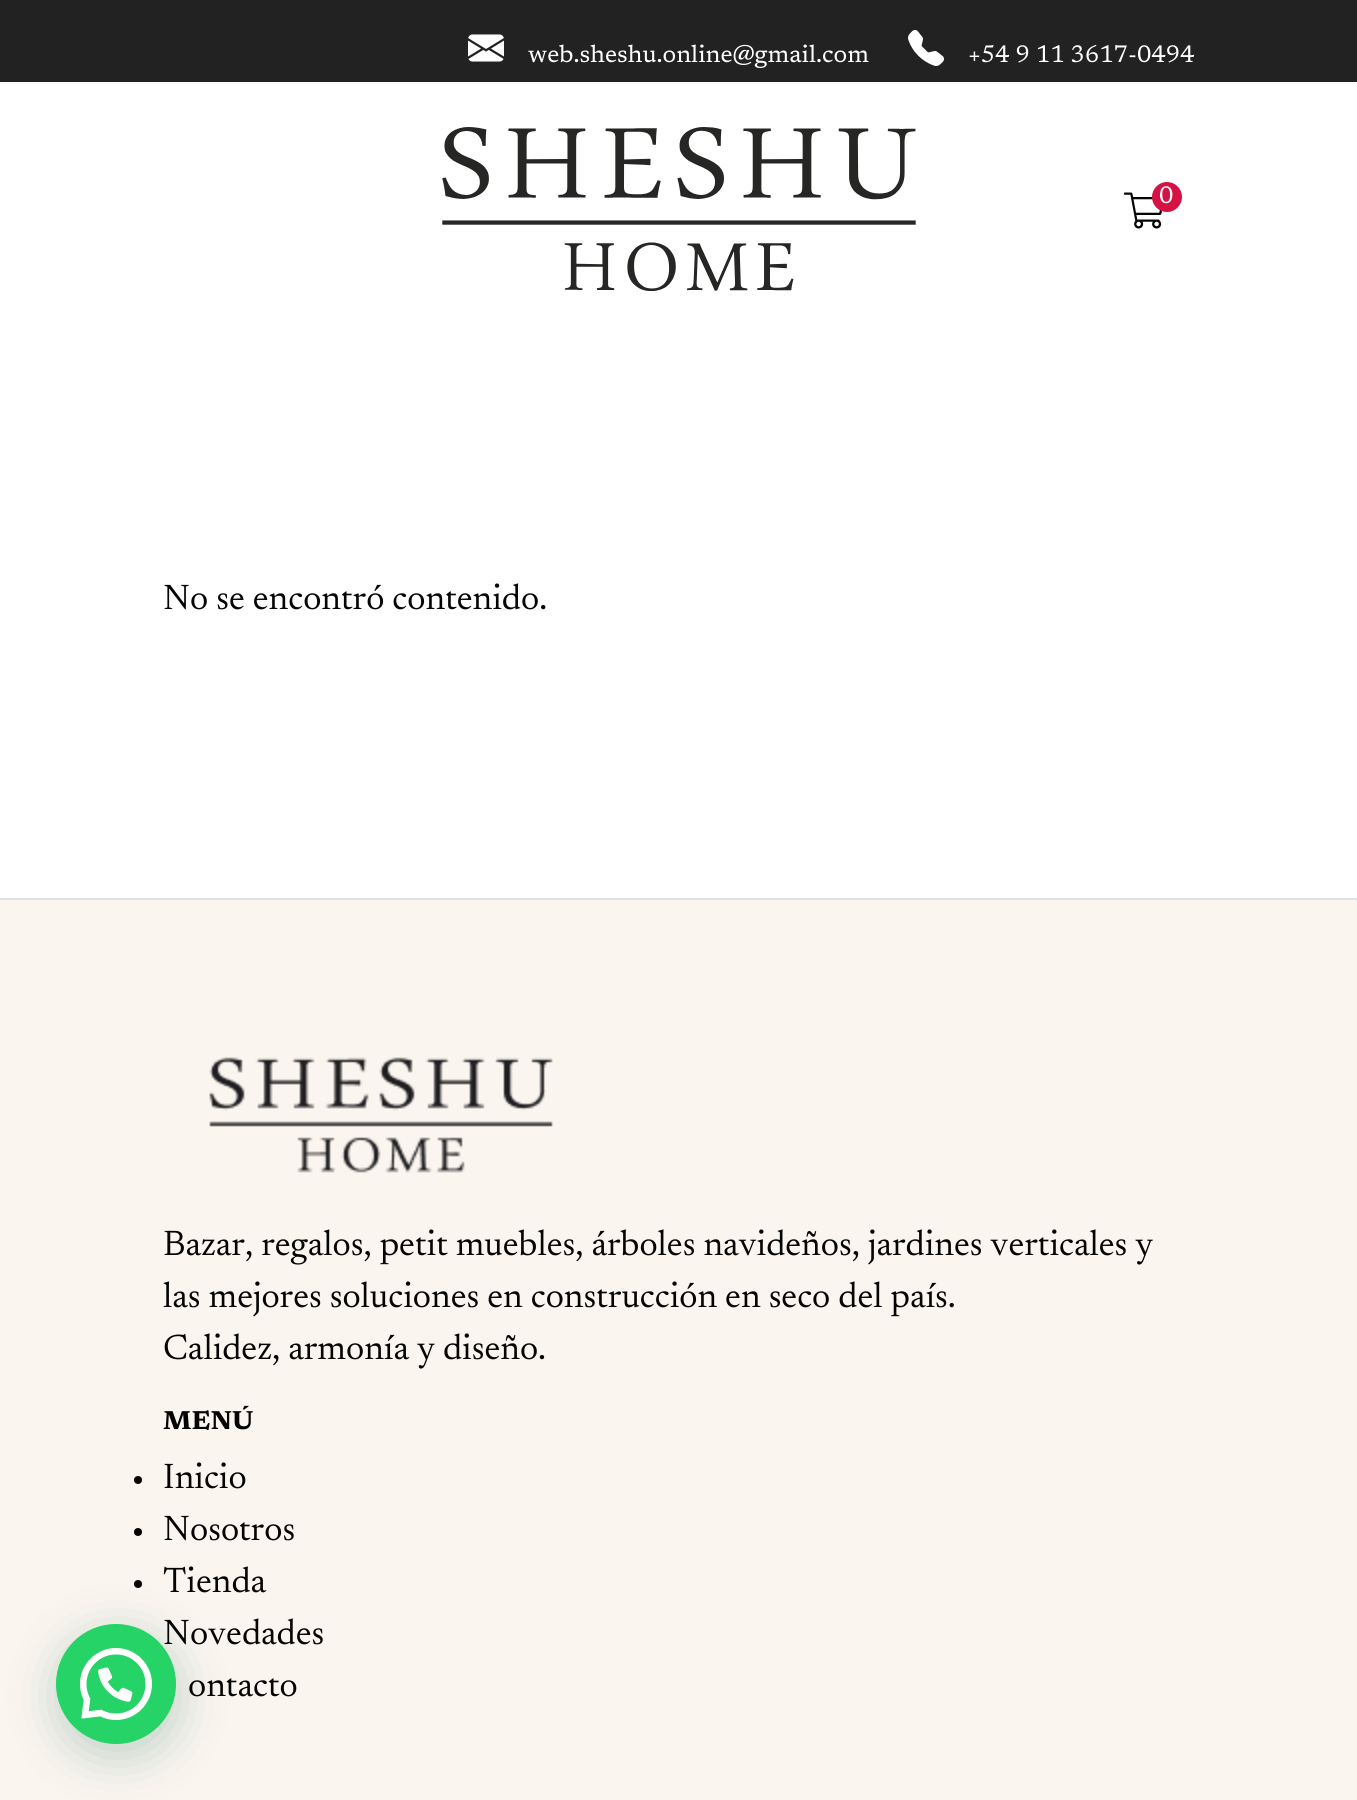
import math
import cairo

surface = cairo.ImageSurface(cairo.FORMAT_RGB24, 1357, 1800)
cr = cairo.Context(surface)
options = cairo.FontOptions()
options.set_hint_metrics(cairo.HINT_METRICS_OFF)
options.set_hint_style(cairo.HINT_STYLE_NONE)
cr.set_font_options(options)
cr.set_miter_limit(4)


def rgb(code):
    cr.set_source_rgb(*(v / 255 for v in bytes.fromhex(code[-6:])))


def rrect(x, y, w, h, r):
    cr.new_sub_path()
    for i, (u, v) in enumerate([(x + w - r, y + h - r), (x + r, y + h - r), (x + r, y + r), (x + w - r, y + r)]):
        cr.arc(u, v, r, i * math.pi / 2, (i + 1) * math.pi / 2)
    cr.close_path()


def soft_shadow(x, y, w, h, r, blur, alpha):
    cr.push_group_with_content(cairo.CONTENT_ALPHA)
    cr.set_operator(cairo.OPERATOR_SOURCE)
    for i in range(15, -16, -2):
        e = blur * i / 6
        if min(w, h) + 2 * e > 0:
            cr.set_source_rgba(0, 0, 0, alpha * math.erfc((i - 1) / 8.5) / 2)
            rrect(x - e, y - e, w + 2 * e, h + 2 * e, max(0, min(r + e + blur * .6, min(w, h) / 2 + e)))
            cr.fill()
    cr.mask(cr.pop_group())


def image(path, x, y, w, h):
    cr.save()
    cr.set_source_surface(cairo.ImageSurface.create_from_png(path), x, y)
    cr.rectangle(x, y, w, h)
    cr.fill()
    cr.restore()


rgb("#ffffff")
cr.paint()
rgb("#222222")
cr.rectangle(0, 0, 1357, 82)
cr.fill()
image("img/1.png", 468, 34, 36, 28)
image("img/2.png", 908, 30, 36, 36)
image("img/3.png", 442, 127, 474, 164)
image("img/4.png", 1124, 192, 38, 37)
rgb("#d51243")
cr.arc(1167, 197, 15, 0, 2 * math.pi)
cr.fill()
rgb("#faf5ee")
cr.rectangle(0, 900, 1357, 900)
cr.fill()
rgb("#040404")
cr.arc(138, 1584, 4, 0, 2 * math.pi)
cr.fill()
rgb("#075e54")
soft_shadow(58, 1636, 120, 120, 60, 24, 0.24)
rgb("#dee2e6")
cr.rectangle(0, 898, 1357, 2)
cr.fill()
image("img/6.png", 209, 1057, 344, 116)
rgb("#040404")
cr.arc(138, 1480, 4, 0, 2 * math.pi)
cr.fill()
cr.arc(138, 1532, 4, 0, 2 * math.pi)
cr.fill()
cr.select_font_face("Newsreader")
cr.set_font_size(24)
rgb("#ffffff")
for x, y, s in [
    (528, 62, "web.sheshu.online@gmail.com"),
    (968, 62, "+54 9 11 3617-0494"),
    (1159, 203, "0"),
]:
    cr.move_to(x, y)
    cr.show_text(s)
cr.select_font_face("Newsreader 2")
cr.set_font_size(36)
rgb("#040404")
for x, y, s in [
    (163, 609, "No se encontró contenido."),
    (163, 1255, "Bazar, regalos, petit muebles, árboles navideños, jardines verticales y"),
    (163, 1307, "las mejores soluciones en construcción en seco del país."),
    (163, 1359, "Calidez, armonía y diseño."),
]:
    cr.move_to(x, y)
    cr.show_text(s)
cr.select_font_face("Newsreader", cairo.FONT_SLANT_NORMAL, cairo.FONT_WEIGHT_BOLD)
cr.set_font_size(26)
cr.move_to(163, 1429)
cr.show_text("MENÚ")
cr.select_font_face("Newsreader 2")
cr.set_font_size(36)
for x, y, s in [
    (163, 1488, "Inicio"),
    (163, 1540, "Nosotros"),
    (163, 1592, "Tienda"),
    (163, 1644, "Novedades"),
]:
    cr.move_to(x, y)
    cr.show_text(s)
rgb("#25d366")
cr.new_path()
cr.arc(116, 1684, 60, 0, 2 * math.pi)
cr.fill()
image("img/5.png", 80, 1648, 72, 72)
rgb("#040404")
cr.move_to(188, 1696)
cr.show_text("ontacto")
surface.write_to_png("page.png")
